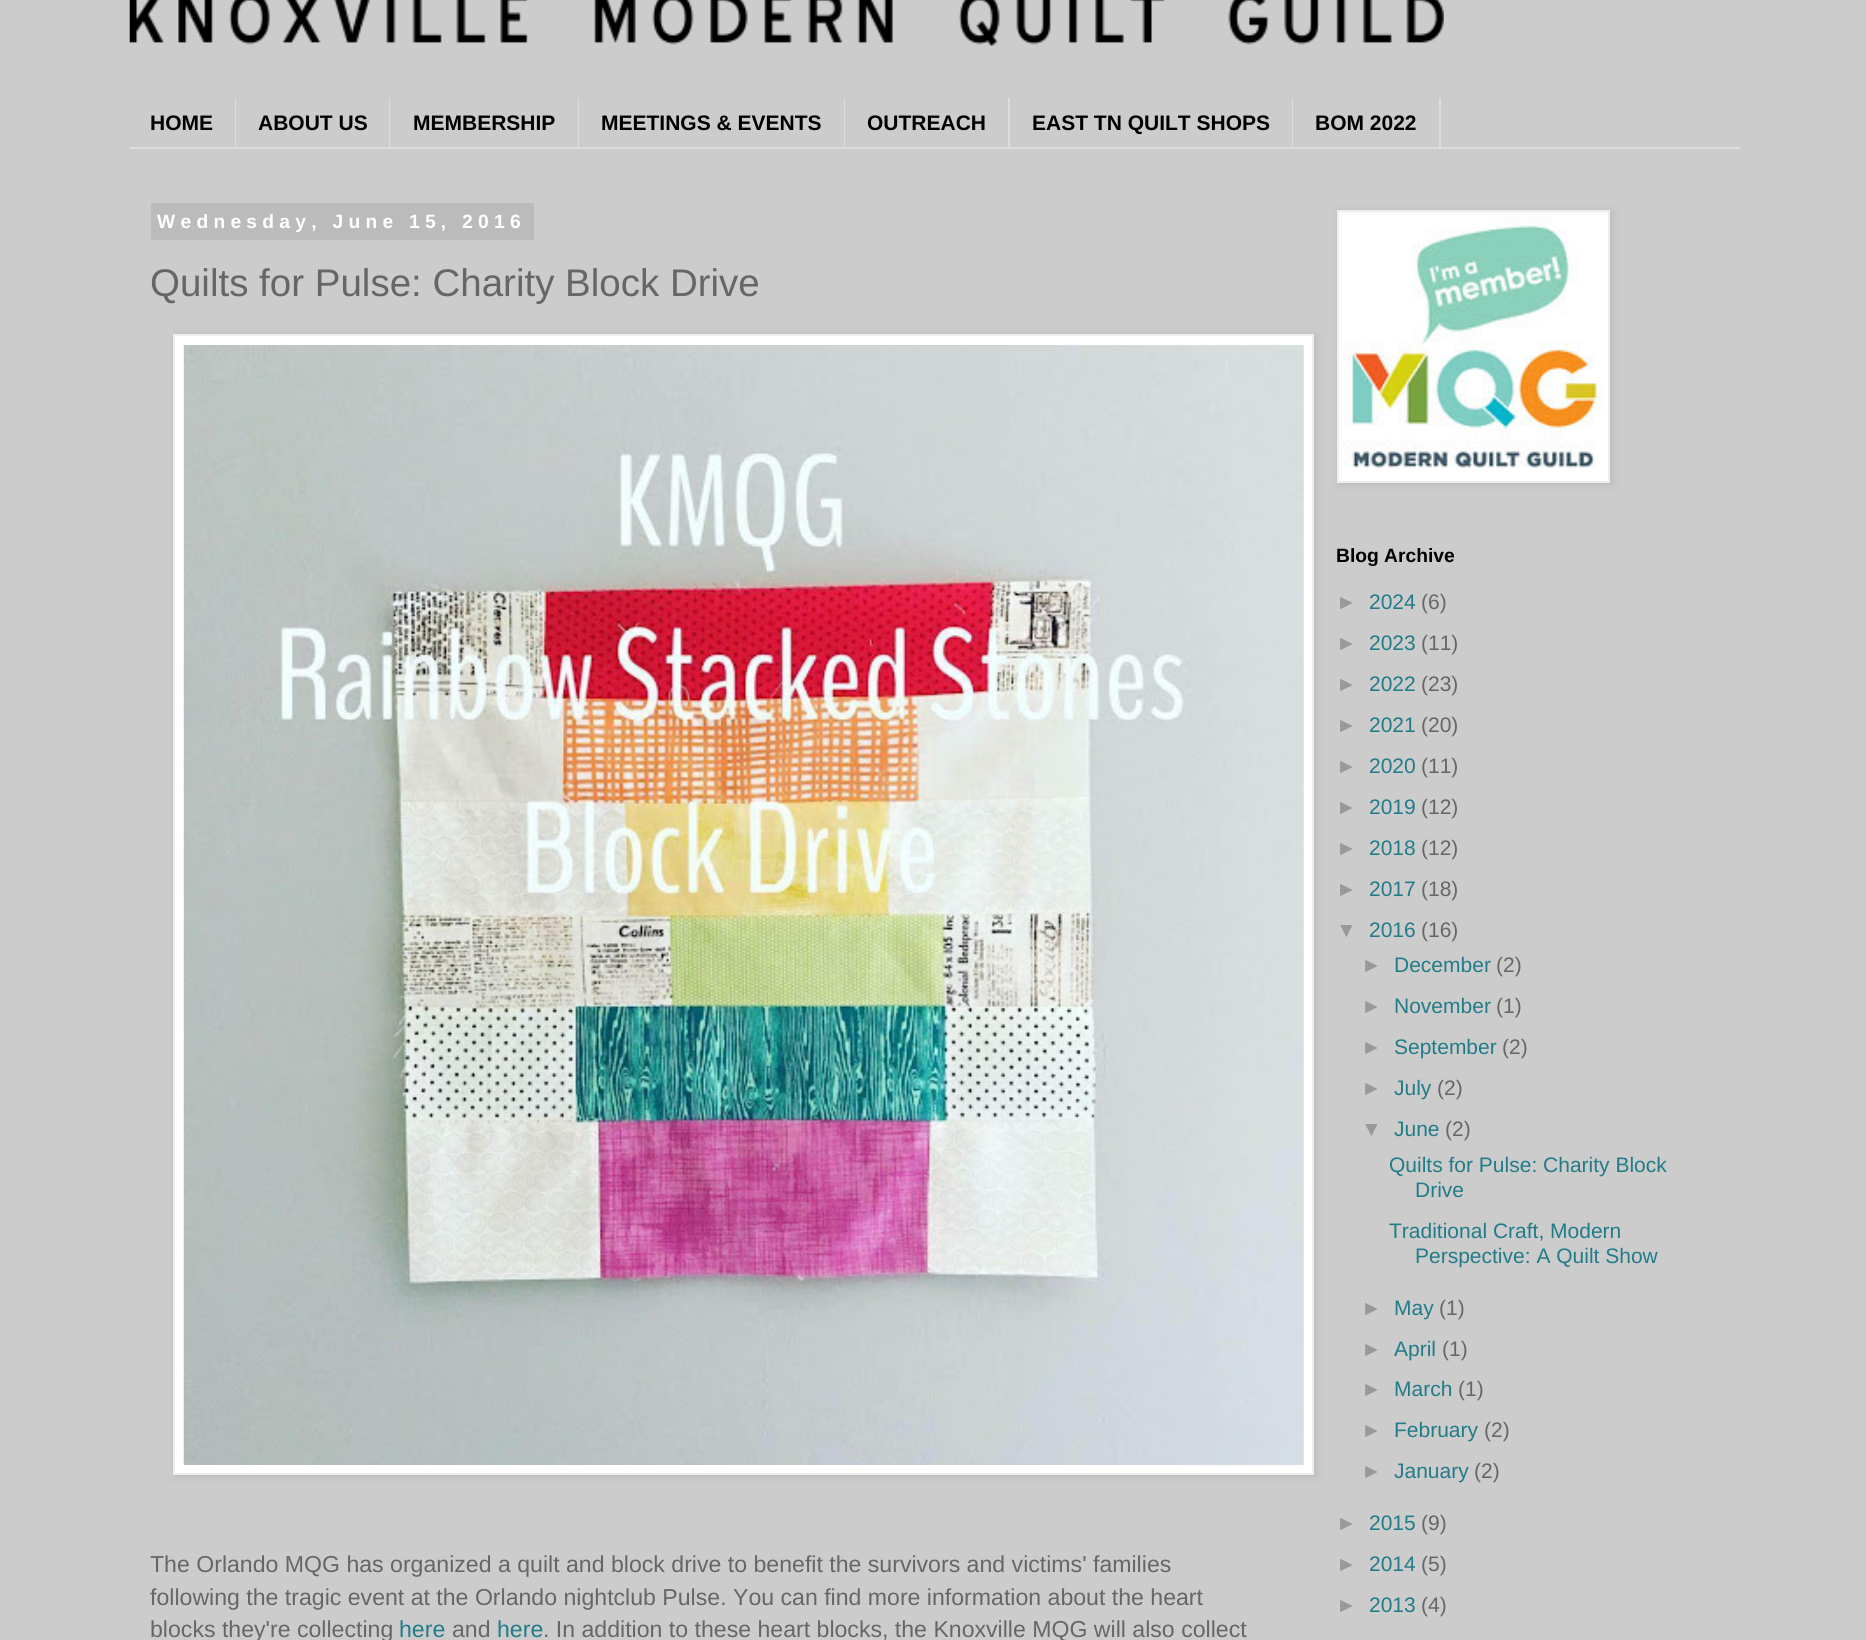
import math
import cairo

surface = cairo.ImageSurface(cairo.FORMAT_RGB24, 1866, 1640)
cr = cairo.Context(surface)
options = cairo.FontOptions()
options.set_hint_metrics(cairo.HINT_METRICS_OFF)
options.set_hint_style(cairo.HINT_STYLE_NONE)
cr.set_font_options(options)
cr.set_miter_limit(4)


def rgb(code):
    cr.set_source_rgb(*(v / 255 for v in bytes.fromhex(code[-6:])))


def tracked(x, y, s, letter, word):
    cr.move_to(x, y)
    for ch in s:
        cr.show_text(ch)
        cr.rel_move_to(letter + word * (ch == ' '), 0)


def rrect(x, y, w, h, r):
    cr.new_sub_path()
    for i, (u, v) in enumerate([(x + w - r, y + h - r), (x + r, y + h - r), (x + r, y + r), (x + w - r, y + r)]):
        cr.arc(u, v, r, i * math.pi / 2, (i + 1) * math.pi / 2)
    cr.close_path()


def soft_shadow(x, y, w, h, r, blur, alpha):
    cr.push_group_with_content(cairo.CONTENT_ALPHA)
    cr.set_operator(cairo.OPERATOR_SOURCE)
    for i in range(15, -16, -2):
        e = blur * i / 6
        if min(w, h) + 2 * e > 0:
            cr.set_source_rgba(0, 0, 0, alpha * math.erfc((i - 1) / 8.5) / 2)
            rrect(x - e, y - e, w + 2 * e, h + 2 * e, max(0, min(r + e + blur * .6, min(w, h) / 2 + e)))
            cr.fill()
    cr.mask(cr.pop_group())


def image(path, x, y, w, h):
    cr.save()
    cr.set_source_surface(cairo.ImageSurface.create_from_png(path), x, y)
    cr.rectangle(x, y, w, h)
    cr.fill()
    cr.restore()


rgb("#cccccc")
cr.paint()
image("img/1.png", 129, 0, 1315, 46)
for x, y, w, h, color in [
    (130, 147, 1610, 2, "#dddddd"),
    (235, 98, 1, 49, "#dddddd"),
    (389, 98, 1, 49, "#dddddd"),
    (578, 98, 1, 49, "#dddddd"),
    (844, 98, 1, 49, "#dddddd"),
    (1008, 98, 2, 49, "#dddddd"),
    (1292, 98, 1, 49, "#dddddd"),
    (1439, 98, 2, 49, "#dddddd"),
    (151, 203, 383, 37, "#bbbbbb"),
]:
    rgb(color)
    cr.rectangle(x, y, w, h)
    cr.fill()
rgb("#000000")
soft_shadow(175, 336, 1141, 1141, 0, 4.5, 0.1)
rgb("#ffffff")
cr.rectangle(174, 335, 1139, 1139)
cr.fill_preserve()
rgb("#eeeeee")
cr.stroke()
image("img/2.png", 183, 345, 1121, 1120)
rgb("#000000")
soft_shadow(1339, 212, 273, 273, 0, 4.5, 0.1)
rgb("#ffffff")
cr.rectangle(1338, 211, 271, 271)
cr.fill_preserve()
rgb("#eeeeee")
cr.stroke()
image("img/3.png", 1342, 216, 261, 252)
cr.select_font_face("Liberation Sans", cairo.FONT_SLANT_NORMAL, cairo.FONT_WEIGHT_BOLD)
cr.set_font_size(21)
rgb("#000000")
for x, y, s in [
    (150, 130, "HOME"),
    (258, 130, "ABOUT US"),
    (413, 130, "MEMBERSHIP"),
    (601, 130, "MEETINGS & EVENTS"),
    (867, 130, "OUTREACH"),
    (1032, 130, "EAST TN QUILT SHOPS"),
    (1315, 130, "BOM 2022"),
]:
    cr.move_to(x, y)
    cr.show_text(s)
cr.set_font_size(19.25)
rgb("#ffffff")
tracked(157, 228, "Wednesday, June 15, 2016", 5.25, 0)
cr.select_font_face("Liberation Sans")
cr.set_font_size(38.5)
rgb("#666666")
cr.move_to(150, 296)
cr.show_text("Quilts for Pulse: Charity Block Drive")
cr.set_font_size(23.1)
for x, y, s in [
    (150, 1572, "The Orlando MQG has organized a quilt and block drive to benefit the survivors and victims' families"),
    (150, 1605, "following the tragic event at the Orlando nightclub Pulse. You can find more information about the heart"),
    (150, 1637, "blocks they're collecting"),
]:
    cr.move_to(x, y)
    cr.show_text(s)
rgb("#227c88")
cr.move_to(399, 1637)
cr.show_text("here")
rgb("#666666")
cr.move_to(452, 1637)
cr.show_text("and")
rgb("#227c88")
cr.move_to(497, 1637)
cr.show_text("here")
rgb("#666666")
cr.move_to(543, 1637)
cr.show_text(". In addition to these heart blocks, the Knoxville MQG will also collect")
cr.select_font_face("Liberation Sans", cairo.FONT_SLANT_NORMAL, cairo.FONT_WEIGHT_BOLD)
cr.set_font_size(19.25)
rgb("#000000")
cr.move_to(1336, 562)
cr.show_text("Blog Archive")
cr.select_font_face("Liberation Sans")
cr.set_font_size(21)
rgb("#999999")
cr.move_to(1336, 609)
cr.show_text("►")
rgb("#227c88")
cr.move_to(1369, 609)
cr.show_text("2024")
rgb("#666666")
cr.move_to(1421, 609)
cr.show_text("(6)")
rgb("#999999")
cr.move_to(1336, 650)
cr.show_text("►")
rgb("#227c88")
cr.move_to(1369, 650)
cr.show_text("2023")
rgb("#666666")
cr.move_to(1421, 650)
cr.show_text("(11)")
rgb("#999999")
cr.move_to(1336, 691)
cr.show_text("►")
rgb("#227c88")
cr.move_to(1369, 691)
cr.show_text("2022")
rgb("#666666")
cr.move_to(1421, 691)
cr.show_text("(23)")
rgb("#999999")
cr.move_to(1336, 732)
cr.show_text("►")
rgb("#227c88")
cr.move_to(1369, 732)
cr.show_text("2021")
rgb("#666666")
cr.move_to(1421, 732)
cr.show_text("(20)")
rgb("#999999")
cr.move_to(1336, 773)
cr.show_text("►")
rgb("#227c88")
cr.move_to(1369, 773)
cr.show_text("2020")
rgb("#666666")
cr.move_to(1421, 773)
cr.show_text("(11)")
rgb("#999999")
cr.move_to(1336, 814)
cr.show_text("►")
rgb("#227c88")
cr.move_to(1369, 814)
cr.show_text("2019")
rgb("#666666")
cr.move_to(1421, 814)
cr.show_text("(12)")
rgb("#999999")
cr.move_to(1336, 855)
cr.show_text("►")
rgb("#227c88")
cr.move_to(1369, 855)
cr.show_text("2018")
rgb("#666666")
cr.move_to(1421, 855)
cr.show_text("(12)")
rgb("#999999")
cr.move_to(1336, 896)
cr.show_text("►")
rgb("#227c88")
cr.move_to(1369, 896)
cr.show_text("2017")
rgb("#666666")
cr.move_to(1421, 896)
cr.show_text("(18)")
rgb("#999999")
cr.move_to(1336, 937)
cr.show_text("▼")
rgb("#227c88")
cr.move_to(1369, 937)
cr.show_text("2016")
rgb("#666666")
cr.move_to(1421, 937)
cr.show_text("(16)")
rgb("#999999")
cr.move_to(1361, 972)
cr.show_text("►")
rgb("#227c88")
cr.move_to(1394, 972)
cr.show_text("December")
rgb("#666666")
cr.move_to(1496, 972)
cr.show_text("(2)")
rgb("#999999")
cr.move_to(1361, 1013)
cr.show_text("►")
rgb("#227c88")
cr.move_to(1394, 1013)
cr.show_text("November")
rgb("#666666")
cr.move_to(1496, 1013)
cr.show_text("(1)")
rgb("#999999")
cr.move_to(1361, 1054)
cr.show_text("►")
rgb("#227c88")
cr.move_to(1394, 1054)
cr.show_text("September")
rgb("#666666")
cr.move_to(1502, 1054)
cr.show_text("(2)")
rgb("#999999")
cr.move_to(1361, 1095)
cr.show_text("►")
rgb("#227c88")
cr.move_to(1394, 1095)
cr.show_text("July")
rgb("#666666")
cr.move_to(1437, 1095)
cr.show_text("(2)")
rgb("#999999")
cr.move_to(1361, 1136)
cr.show_text("▼")
rgb("#227c88")
cr.move_to(1394, 1136)
cr.show_text("June")
rgb("#666666")
cr.move_to(1445, 1136)
cr.show_text("(2)")
rgb("#227c88")
for x, y, s in [
    (1389, 1172, "Quilts for Pulse: Charity Block"),
    (1415, 1197, "Drive"),
    (1389, 1238, "Traditional Craft, Modern"),
    (1415, 1263, "Perspective: A Quilt Show"),
]:
    cr.move_to(x, y)
    cr.show_text(s)
rgb("#999999")
cr.move_to(1361, 1315)
cr.show_text("►")
rgb("#227c88")
cr.move_to(1394, 1315)
cr.show_text("May")
rgb("#666666")
cr.move_to(1439, 1315)
cr.show_text("(1)")
rgb("#999999")
cr.move_to(1361, 1356)
cr.show_text("►")
rgb("#227c88")
cr.move_to(1394, 1356)
cr.show_text("April")
rgb("#666666")
cr.move_to(1442, 1356)
cr.show_text("(1)")
rgb("#999999")
cr.move_to(1361, 1396)
cr.show_text("►")
rgb("#227c88")
cr.move_to(1394, 1396)
cr.show_text("March")
rgb("#666666")
cr.move_to(1458, 1396)
cr.show_text("(1)")
rgb("#999999")
cr.move_to(1361, 1437)
cr.show_text("►")
rgb("#227c88")
cr.move_to(1394, 1437)
cr.show_text("February")
rgb("#666666")
cr.move_to(1484, 1437)
cr.show_text("(2)")
rgb("#999999")
cr.move_to(1361, 1478)
cr.show_text("►")
rgb("#227c88")
cr.move_to(1394, 1478)
cr.show_text("January")
rgb("#666666")
cr.move_to(1474, 1478)
cr.show_text("(2)")
rgb("#999999")
cr.move_to(1336, 1530)
cr.show_text("►")
rgb("#227c88")
cr.move_to(1369, 1530)
cr.show_text("2015")
rgb("#666666")
cr.move_to(1421, 1530)
cr.show_text("(9)")
rgb("#999999")
cr.move_to(1336, 1571)
cr.show_text("►")
rgb("#227c88")
cr.move_to(1369, 1571)
cr.show_text("2014")
rgb("#666666")
cr.move_to(1421, 1571)
cr.show_text("(5)")
rgb("#999999")
cr.move_to(1336, 1612)
cr.show_text("►")
rgb("#227c88")
cr.move_to(1369, 1612)
cr.show_text("2013")
rgb("#666666")
cr.move_to(1421, 1612)
cr.show_text("(4)")
surface.write_to_png("page.png")
